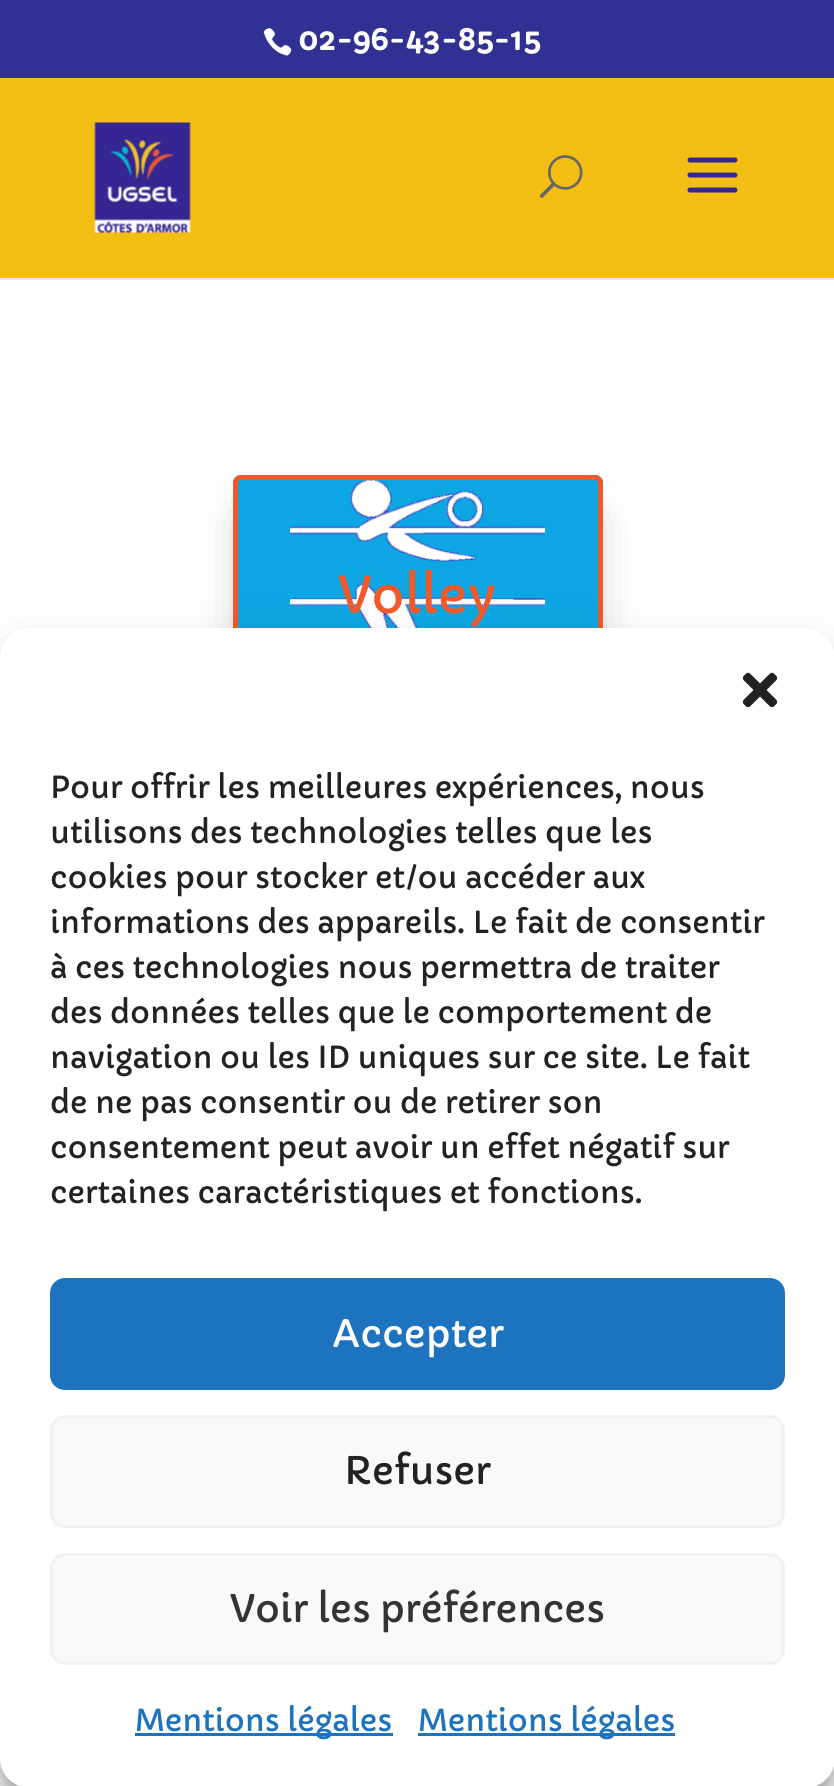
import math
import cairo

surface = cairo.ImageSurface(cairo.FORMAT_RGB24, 834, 1786)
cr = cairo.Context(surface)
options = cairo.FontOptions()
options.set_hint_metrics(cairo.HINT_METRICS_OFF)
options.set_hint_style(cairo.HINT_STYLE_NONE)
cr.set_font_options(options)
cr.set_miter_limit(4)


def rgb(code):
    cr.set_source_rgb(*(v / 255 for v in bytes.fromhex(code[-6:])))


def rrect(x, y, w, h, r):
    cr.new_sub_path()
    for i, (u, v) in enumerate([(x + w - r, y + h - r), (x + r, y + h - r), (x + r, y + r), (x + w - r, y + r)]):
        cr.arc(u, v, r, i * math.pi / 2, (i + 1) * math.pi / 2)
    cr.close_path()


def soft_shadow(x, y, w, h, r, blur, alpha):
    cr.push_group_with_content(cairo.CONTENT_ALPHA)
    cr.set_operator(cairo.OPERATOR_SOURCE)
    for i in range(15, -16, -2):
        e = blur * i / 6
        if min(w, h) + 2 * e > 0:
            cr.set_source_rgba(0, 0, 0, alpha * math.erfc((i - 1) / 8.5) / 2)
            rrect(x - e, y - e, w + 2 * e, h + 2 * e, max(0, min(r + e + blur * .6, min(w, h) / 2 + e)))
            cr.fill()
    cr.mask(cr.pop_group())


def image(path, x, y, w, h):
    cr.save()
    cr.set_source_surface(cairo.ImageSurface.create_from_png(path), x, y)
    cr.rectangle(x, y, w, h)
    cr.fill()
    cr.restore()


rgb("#ffffff")
cr.paint()
rgb("#303192")
cr.rectangle(0, 0, 834, 78)
cr.fill()
image("img/1.png", 263, 28, 29, 28)
rgb("#e6e6e6")
cr.rectangle(0, 278, 834, 2)
cr.fill()
rgb("#f3be14")
cr.rectangle(0, 78, 834, 200)
cr.fill()
image("img/2.png", 94, 122, 97, 111)
image("img/3.png", 539, 155, 44, 43)
image("img/4.png", 687, 157, 51, 36)
rgb("#000000")
soft_shadow(248, 520, 340, 203, 0, 22.5, 0.3)
rgb("#0da6e2")
rrect(233, 475, 370, 233, 8)
cr.fill()
image("img/5.png", 290, 480, 255, 148)
rrect(235.5, 477.5, 365, 228, 5.5)
rgb("#f1592a")
cr.set_line_width(5)
cr.stroke()
rgb("#000000")
soft_shadow(0, 643, 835, 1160, 30, 7.5, 0.23)
soft_shadow(0, 653, 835, 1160, 30, 25, 0.19)
rgb("#ffffff")
rrect(0, 628, 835, 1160, 30)
cr.fill()
image("img/6.png", 742, 672, 36, 36)
rgb("#1e73be")
rrect(51.5, 1279.5, 732, 109, 13.5)
cr.fill_preserve()
cr.set_line_width(3)
cr.stroke()
rgb("#f9f9f9")
rrect(51.5, 1416.5, 732, 110, 13.5)
cr.fill_preserve()
rgb("#f2f2f2")
cr.stroke()
rgb("#f9f9f9")
rrect(51.5, 1554.5, 732, 109, 13.5)
cr.fill_preserve()
rgb("#f2f2f2")
cr.stroke()
rgb("#1e73be")
cr.rectangle(135, 1733, 258, 3)
cr.fill()
cr.rectangle(418, 1733, 257, 3)
cr.fill()
cr.select_font_face("Capriola", cairo.FONT_SLANT_NORMAL, cairo.FONT_WEIGHT_BOLD)
cr.set_font_size(30)
rgb("#ffffff")
cr.move_to(298, 50)
cr.show_text("02-96-43-85-15")
cr.select_font_face("Capriola")
cr.set_font_size(50)
rgb("#f1592a")
cr.move_to(338, 613)
cr.show_text("Volley")
cr.set_font_size(30)
rgb("#222222")
for x, y, s in [
    (50, 798, "Pour offrir les meilleures expériences, nous"),
    (50, 843, "utilisons des technologies telles que les"),
    (50, 888, "cookies pour stocker et/ou accéder aux"),
    (50, 933, "informations des appareils. Le fait de consentir"),
    (50, 978, "à ces technologies nous permettra de traiter"),
    (50, 1023, "des données telles que le comportement de"),
    (50, 1068, "navigation ou les ID uniques sur ce site. Le fait"),
    (50, 1113, "de ne pas consentir ou de retirer son"),
    (50, 1158, "consentement peut avoir un effet négatif sur"),
    (50, 1203, "certaines caractéristiques et fonctions."),
]:
    cr.move_to(x, y)
    cr.show_text(s)
cr.set_font_size(37.5)
rgb("#ffffff")
cr.move_to(332, 1347)
cr.show_text("Accepter")
rgb("#222222")
cr.move_to(344, 1484)
cr.show_text("Refuser")
rgb("#333333")
cr.move_to(230, 1622)
cr.show_text("Voir les préférences")
cr.set_font_size(30)
rgb("#1e73be")
cr.move_to(135, 1731)
cr.show_text("Mentions légales")
cr.move_to(418, 1731)
cr.show_text("Mentions légales")
surface.write_to_png("page.png")
